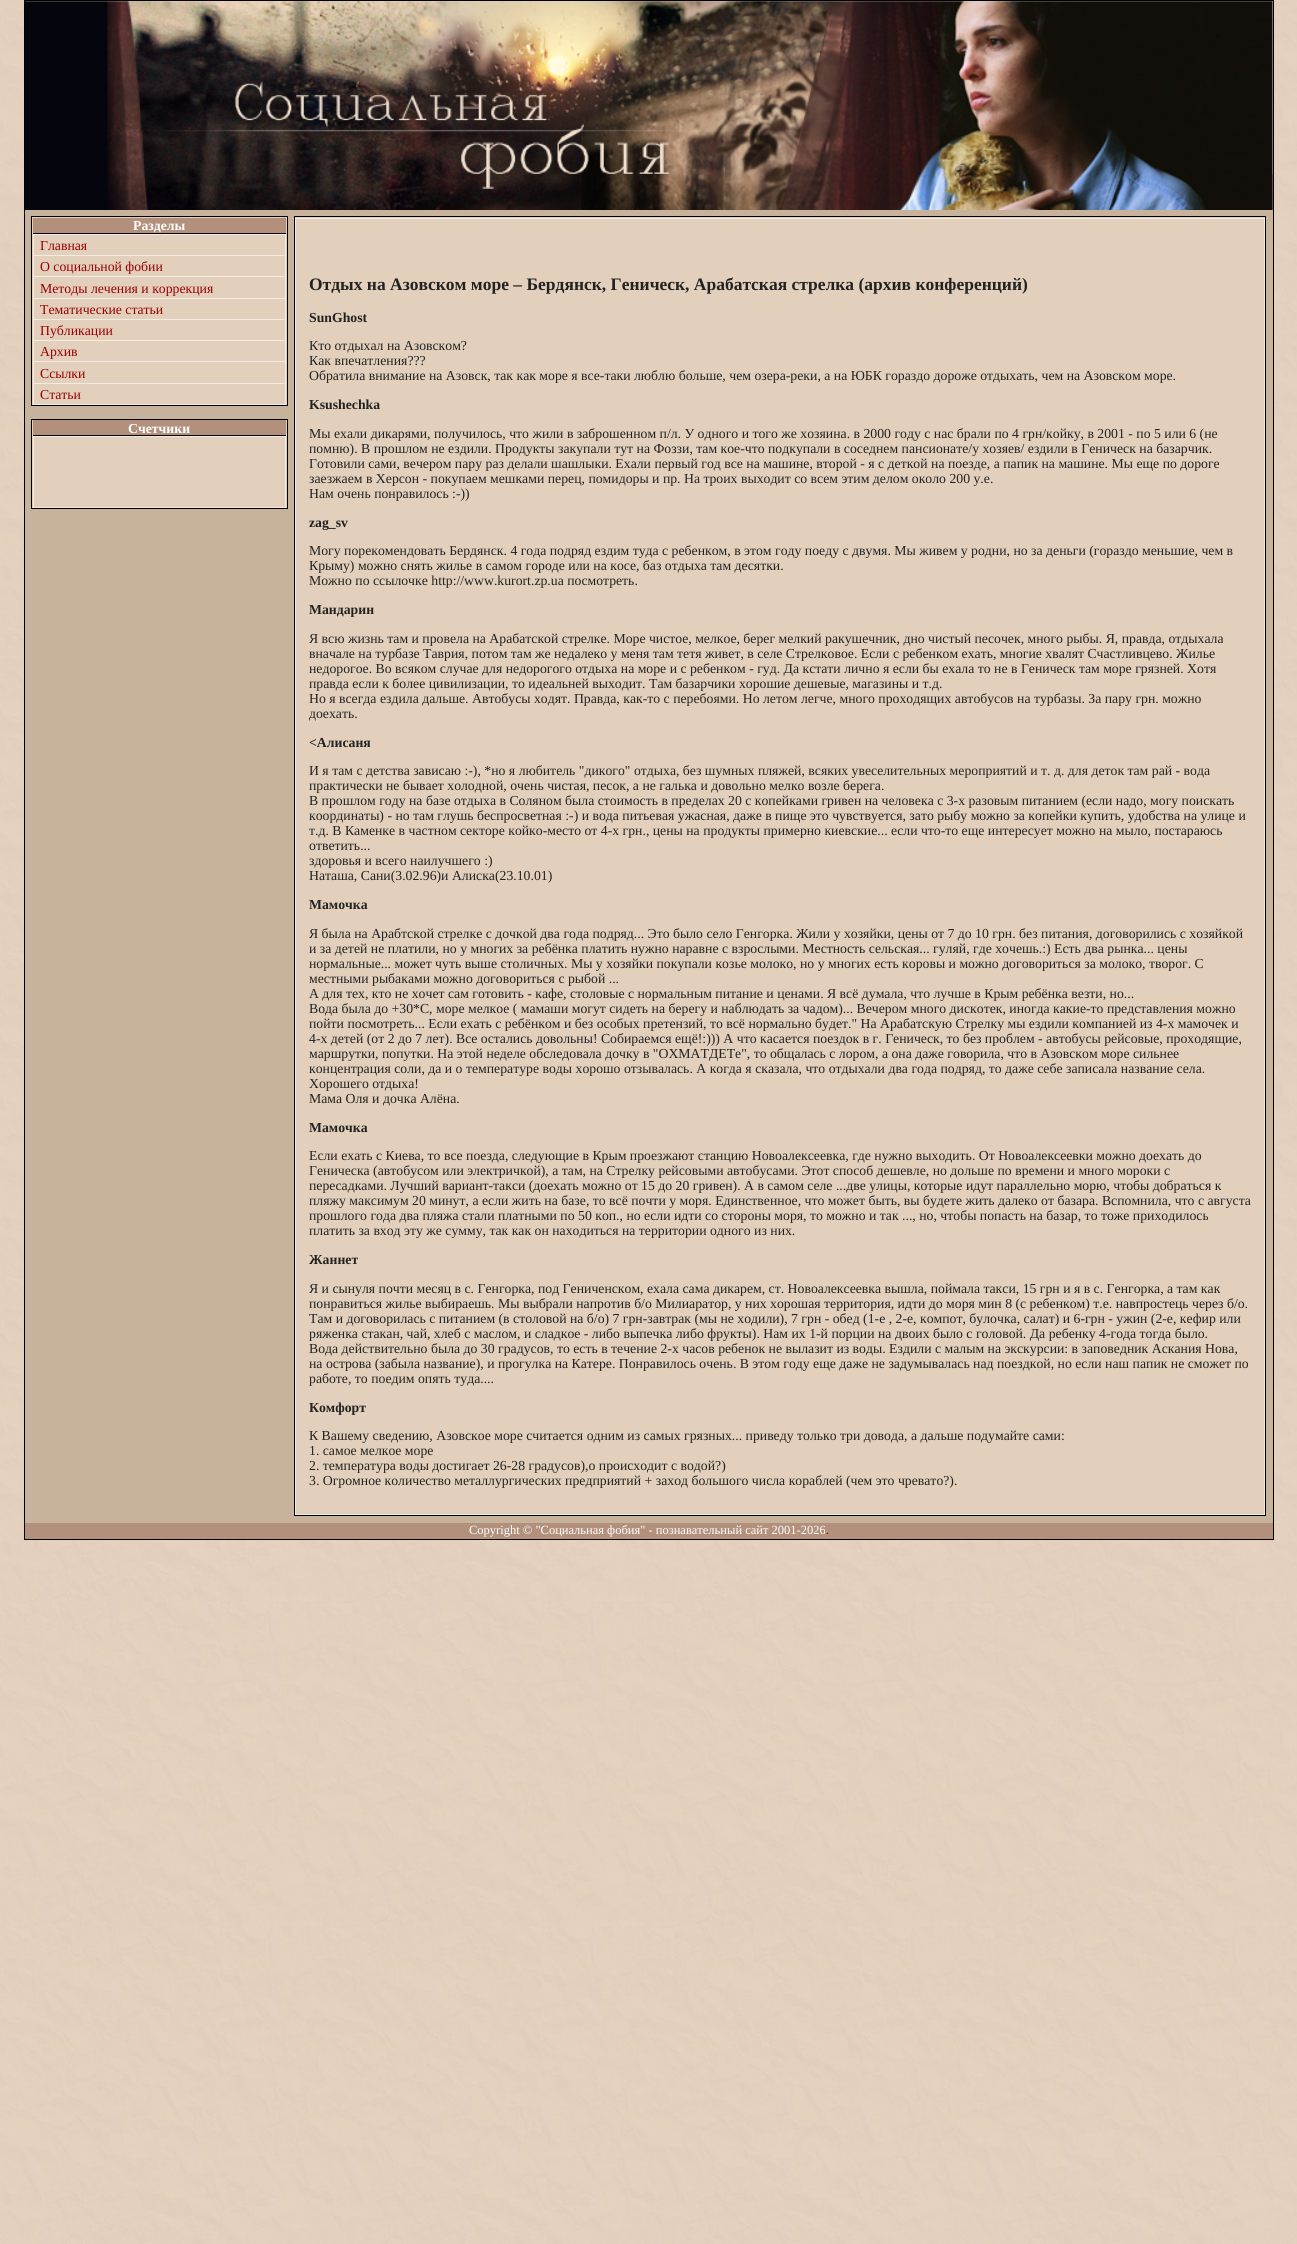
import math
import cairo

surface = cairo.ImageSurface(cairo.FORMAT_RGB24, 1297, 2244)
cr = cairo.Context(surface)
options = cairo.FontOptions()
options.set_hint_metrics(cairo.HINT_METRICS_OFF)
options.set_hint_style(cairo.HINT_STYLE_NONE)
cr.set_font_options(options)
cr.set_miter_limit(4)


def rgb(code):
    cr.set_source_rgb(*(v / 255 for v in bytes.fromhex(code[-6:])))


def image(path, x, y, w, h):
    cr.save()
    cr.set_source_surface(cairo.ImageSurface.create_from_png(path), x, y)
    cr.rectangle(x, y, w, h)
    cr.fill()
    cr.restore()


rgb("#ffffff")
cr.paint()
image("img/1.png", 0, 0, 1297, 2244)
cr.rectangle(24.5, 0.5, 1249, 1539)
rgb("#000000")
cr.set_line_width(1)
cr.stroke()
rgb("#e2d0bc")
cr.rectangle(25, 1, 1248, 173)
cr.fill()
rgb("#b3907c")
cr.rectangle(1272, 174, 1, 36)
cr.fill()
image("img/2.png", 25, 1, 1248, 209)
rgb("#c7b39b")
cr.rectangle(25, 210, 1248, 1313)
cr.fill()
rgb("#e2d0bc")
cr.rectangle(31.5, 216.5, 256, 189)
cr.fill_preserve()
rgb("#000000")
cr.stroke()
rgb("#b3907c")
cr.rectangle(33, 218, 253, 15)
cr.fill()
rgb("#000000")
cr.rectangle(33, 233, 253, 1)
cr.fill()
cr.rectangle(33.5, 234.5, 252, 170)
rgb("#f3eae2")
cr.stroke()
for x, y, w, h, color in [
    (34, 255, 251, 1, "#f3eae2"),
    (34, 276, 251, 1, "#f3eae2"),
    (34, 298, 251, 1, "#f3eae2"),
    (34, 319, 251, 1, "#f3eae2"),
    (34, 340, 251, 1, "#f3eae2"),
    (34, 361, 251, 1, "#f3eae2"),
    (34, 383, 251, 1, "#f3eae2"),
]:
    rgb(color)
    cr.rectangle(x, y, w, h)
    cr.fill()
rgb("#e2d0bc")
cr.rectangle(31.5, 419.5, 256, 89)
cr.fill_preserve()
rgb("#000000")
cr.stroke()
rgb("#b3907c")
cr.rectangle(33, 420, 253, 15)
cr.fill()
rgb("#000000")
cr.rectangle(33, 435, 253, 1)
cr.fill()
cr.rectangle(33.5, 436.5, 252, 71)
rgb("#f3eae2")
cr.stroke()
rgb("#e2d0bc")
cr.rectangle(295, 217, 970, 1297)
cr.fill()
cr.rectangle(294.5, 216.5, 971, 1299)
rgb("#000000")
cr.stroke()
cr.rectangle(295.5, 218.5, 969, 1296)
rgb("#f3eae2")
cr.stroke()
rgb("#b3907c")
cr.rectangle(25, 1523, 1248, 16)
cr.fill()
cr.select_font_face("Liberation Serif", cairo.FONT_SLANT_NORMAL, cairo.FONT_WEIGHT_BOLD)
cr.set_font_size(13.75)
rgb("#ffffff")
cr.move_to(133, 230)
cr.show_text("Разделы")
cr.select_font_face("Liberation Serif")
rgb("#990000")
for x, y, s in [
    (40, 250, "Главная"),
    (40, 271, "О социальной фобии"),
    (40, 293, "Методы лечения и коррекция"),
    (40, 314, "Тематические статьи"),
    (40, 335, "Публикации"),
    (40, 356, "Архив"),
    (40, 378, "Ссылки"),
    (40, 399, "Статьи"),
]:
    cr.move_to(x, y)
    cr.show_text(s)
cr.select_font_face("Liberation Serif", cairo.FONT_SLANT_NORMAL, cairo.FONT_WEIGHT_BOLD)
rgb("#ffffff")
cr.move_to(128, 433)
cr.show_text("Счетчики")
cr.set_font_size(17.5)
rgb("#222222")
cr.move_to(309, 290)
cr.show_text("Отдых на Азовском море – Бердянск, Геническ, Арабатская стрелка (архив конференций)")
cr.set_font_size(13.75)
cr.move_to(309, 322)
cr.show_text("SunGhost")
cr.select_font_face("Liberation Serif")
for x, y, s in [
    (309, 350, "Кто отдыхал на Азовском?"),
    (309, 365, "Как впечатления???"),
    (309, 380, "Обратила внимание на Азовск, так как море я все-таки люблю больше, чем озера-реки, а на ЮБК гораздо дороже отдыхать, чем на Азовском море."),
]:
    cr.move_to(x, y)
    cr.show_text(s)
cr.select_font_face("Liberation Serif", cairo.FONT_SLANT_NORMAL, cairo.FONT_WEIGHT_BOLD)
cr.move_to(309, 409)
cr.show_text("Ksushechka")
cr.select_font_face("Liberation Serif")
for x, y, s in [
    (309, 438, "Мы ехали дикарями, получилось, что жили в заброшенном п/л. У одного и того же хозяина. в 2000 году с нас брали по 4 грн/койку, в 2001 - по 5 или 6 (не"),
    (309, 453, "помню). В прошлом не ездили. Продукты закупали тут на Фоззи, там кое-что подкупали в соседнем пансионате/у хозяев/ ездили в Геническ на базарчик."),
    (309, 468, "Готовили сами, вечером пару раз делали шашлыки. Ехали первый год все на машине, второй - я с деткой на поезде, а папик на машине. Мы еще по дороге"),
    (309, 483, "заезжаем в Херсон - покупаем мешками перец, помидоры и пр. На троих выходит со всем этим делом около 200 у.е."),
    (309, 498, "Нам очень понравилось :-))"),
]:
    cr.move_to(x, y)
    cr.show_text(s)
cr.select_font_face("Liberation Serif", cairo.FONT_SLANT_NORMAL, cairo.FONT_WEIGHT_BOLD)
cr.move_to(309, 527)
cr.show_text("zag_sv")
cr.select_font_face("Liberation Serif")
for x, y, s in [
    (309, 555, "Могу порекомендовать Бердянск. 4 года подряд ездим туда с ребенком, в этом году поеду с двумя. Мы живем у родни, но за деньги (гораздо меньшие, чем в"),
    (309, 570, "Крыму) можно снять жилье в самом городе или на косе, баз отдыха там десятки."),
    (309, 585, "Можно по ссылочке http://www.kurort.zp.ua посмотреть."),
]:
    cr.move_to(x, y)
    cr.show_text(s)
cr.select_font_face("Liberation Serif", cairo.FONT_SLANT_NORMAL, cairo.FONT_WEIGHT_BOLD)
cr.move_to(309, 614)
cr.show_text("Мандарин")
cr.select_font_face("Liberation Serif")
for x, y, s in [
    (309, 643, "Я всю жизнь там и провела на Арабатской стрелке. Море чистое, мелкое, берег мелкий ракушечник, дно чистый песочек, много рыбы. Я, правда, отдыхала"),
    (309, 658, "вначале на турбазе Таврия, потом там же недалеко у меня там тетя живет, в селе Стрелковое. Если с ребенком ехать, многие хвалят Счастливцево. Жилье"),
    (309, 673, "недорогое. Во всяком случае для недорогого отдыха на море и с ребенком - гуд. Да кстати лично я если бы ехала то не в Геническ там море грязней. Хотя"),
    (309, 688, "правда если к более цивилизации, то идеальней выходит. Там базарчики хорошие дешевые, магазины и т.д."),
    (309, 703, "Но я всегда ездила дальше. Автобусы ходят. Правда, как-то с перебоями. Но летом легче, много проходящих автобусов на турбазы. За пару грн. можно"),
    (309, 718, "доехать."),
]:
    cr.move_to(x, y)
    cr.show_text(s)
cr.select_font_face("Liberation Serif", cairo.FONT_SLANT_NORMAL, cairo.FONT_WEIGHT_BOLD)
cr.move_to(309, 747)
cr.show_text("<Алисаня")
cr.select_font_face("Liberation Serif")
for x, y, s in [
    (309, 775, "И я там с детства зависаю :-), *но я любитель \"дикого\" отдыха, без шумных пляжей, всяких увеселительных мероприятий и т. д. для деток там рай - вода"),
    (309, 790, "практически не бывает холодной, очень чистая, песок, а не галька и довольно мелко возле берега."),
    (309, 805, "В прошлом году на базе отдыха в Соляном была стоимость в пределах 20 с копейками гривен на человека с 3-х разовым питанием (если надо, могу поискать"),
    (309, 820, "координаты) - но там глушь беспросветная :-) и вода питьевая ужасная, даже в пище это чувствуется, зато рыбу можно за копейки купить, удобства на улице и"),
    (309, 835, "т.д. В Каменке в частном секторе койко-место от 4-х грн., цены на продукты примерно киевские... если что-то еще интересует можно на мыло, постараюсь"),
    (309, 850, "ответить..."),
    (309, 865, "здоровья и всего наилучшего :)"),
    (309, 880, "Наташа, Сани(3.02.96)и Алиска(23.10.01)"),
]:
    cr.move_to(x, y)
    cr.show_text(s)
cr.select_font_face("Liberation Serif", cairo.FONT_SLANT_NORMAL, cairo.FONT_WEIGHT_BOLD)
cr.move_to(309, 909)
cr.show_text("Мамочка")
cr.select_font_face("Liberation Serif")
for x, y, s in [
    (309, 938, "Я была на Арабтской стрелке с дочкой два года подряд... Это было село Генгорка. Жили у хозяйки, цены от 7 до 10 грн. без питания, договорились с хозяйкой"),
    (309, 953, "и за детей не платили, но у многих за ребёнка платить нужно наравне с взрослыми. Местность сельская... гуляй, где хочешь.:) Есть два рынка... цены"),
    (309, 968, "нормальные... может чуть выше столичных. Мы у хозяйки покупали козье молоко, но у многих есть коровы и можно договориться за молоко, творог. С"),
    (309, 983, "местными рыбаками можно договориться с рыбой ..."),
    (309, 998, "А для тех, кто не хочет сам готовить - кафе, столовые с нормальным питание и ценами. Я всё думала, что лучше в Крым ребёнка везти, но..."),
    (309, 1013, "Вода была до +30*С, море мелкое ( мамаши могут сидеть на берегу и наблюдать за чадом)... Вечером много дискотек, иногда какие-то представления можно"),
    (309, 1028, "пойти посмотреть... Если ехать с ребёнком и без особых претензий, то всё нормально будет.\" На Арабатскую Стрелку мы ездили компанией из 4-х мамочек и"),
    (309, 1043, "4-х детей (от 2 до 7 лет). Все остались довольны! Собираемся ещё!:))) А что касается поездок в г. Геническ, то без проблем - автобусы рейсовые, проходящие,"),
    (309, 1058, "маршрутки, попутки. На этой неделе обследовала дочку в \"ОХМАТДЕТе\", то общалась с лором, а она даже говорила, что в Азовском море сильнее"),
    (309, 1073, "концентрация соли, да и о температуре воды хорошо отзывалась. А когда я сказала, что отдыхали два года подряд, то даже себе записала название села."),
    (309, 1088, "Хорошего отдыха!"),
    (309, 1103, "Мама Оля и дочка Алёна."),
]:
    cr.move_to(x, y)
    cr.show_text(s)
cr.select_font_face("Liberation Serif", cairo.FONT_SLANT_NORMAL, cairo.FONT_WEIGHT_BOLD)
cr.move_to(309, 1132)
cr.show_text("Мамочка")
cr.select_font_face("Liberation Serif")
for x, y, s in [
    (309, 1160, "Если ехать с Киева, то все поезда, следующие в Крым проезжают станцию Новоалексеевка, где нужно выходить. От Новоалексеевки можно доехать до"),
    (309, 1175, "Геническа (автобусом или электричкой), а там, на Стрелку рейсовыми автобусами. Этот способ дешевле, но дольше по времени и много мороки с"),
    (309, 1190, "пересадками. Лучший вариант-такси (доехать можно от 15 до 20 гривен). А в самом селе ...две улицы, которые идут параллельно морю, чтобы добраться к"),
    (309, 1205, "пляжу максимум 20 минут, а если жить на базе, то всё почти у моря. Единственное, что может быть, вы будете жить далеко от базара. Вспомнила, что с августа"),
    (309, 1220, "прошлого года два пляжа стали платными по 50 коп., но если идти со стороны моря, то можно и так ..., но, чтобы попасть на базар, то тоже приходилось"),
    (309, 1235, "платить за вход эту же сумму, так как он находиться на территории одного из них."),
]:
    cr.move_to(x, y)
    cr.show_text(s)
cr.select_font_face("Liberation Serif", cairo.FONT_SLANT_NORMAL, cairo.FONT_WEIGHT_BOLD)
cr.move_to(309, 1264)
cr.show_text("Жаннет")
cr.select_font_face("Liberation Serif")
for x, y, s in [
    (309, 1293, "Я и сынуля почти месяц в с. Генгорка, под Гениченском, ехала сама дикарем, ст. Новоалексеевка вышла, поймала такси, 15 грн и я в с. Генгорка, а там как"),
    (309, 1308, "понравиться жилье выбираешь. Мы выбрали напротив б/о Милиаратор, у них хорошая территория, идти до моря мин 8 (с ребенком) т.е. навпростець через б/о."),
    (309, 1323, "Там и договорилась с питанием (в столовой на б/о) 7 грн-завтрак (мы не ходили), 7 грн - обед (1-е , 2-е, компот, булочка, салат) и 6-грн - ужин (2-е, кефир или"),
    (309, 1338, "ряженка стакан, чай, хлеб с маслом, и сладкое - либо выпечка либо фрукты). Нам их 1-й порции на двоих было с головой. Да ребенку 4-года тогда было."),
    (309, 1353, "Вода действительно была до 30 градусов, то есть в течение 2-х часов ребенок не вылазит из воды. Ездили с малым на экскурсии: в заповедник Аскания Нова,"),
    (309, 1368, "на острова (забыла название), и прогулка на Катере. Понравилось очень. В этом году еще даже не задумывалась над поездкой, но если наш папик не сможет по"),
    (309, 1383, "работе, то поедим опять туда...."),
]:
    cr.move_to(x, y)
    cr.show_text(s)
cr.select_font_face("Liberation Serif", cairo.FONT_SLANT_NORMAL, cairo.FONT_WEIGHT_BOLD)
cr.move_to(309, 1412)
cr.show_text("Комфорт")
cr.select_font_face("Liberation Serif")
for x, y, s in [
    (309, 1440, "К Вашему сведению, Азовское море считается одним из самых грязных... приведу только три довода, а дальше подумайте сами:"),
    (309, 1455, "1. самое мелкое море"),
    (309, 1470, "2. температура воды достигает 26-28 градусов),о происходит с водой?)"),
    (309, 1485, "3. Огромное количество металлургических предприятий + заход большого числа кораблей (чем это чревато?)."),
]:
    cr.move_to(x, y)
    cr.show_text(s)
cr.set_font_size(12.5)
rgb("#ffffff")
cr.move_to(469, 1534)
cr.show_text("Copyright © \"Социальная фобия\" - познавательный сайт 2001-2026")
rgb("#990000")
cr.move_to(826, 1534)
cr.show_text(".")
surface.write_to_png("page.png")
